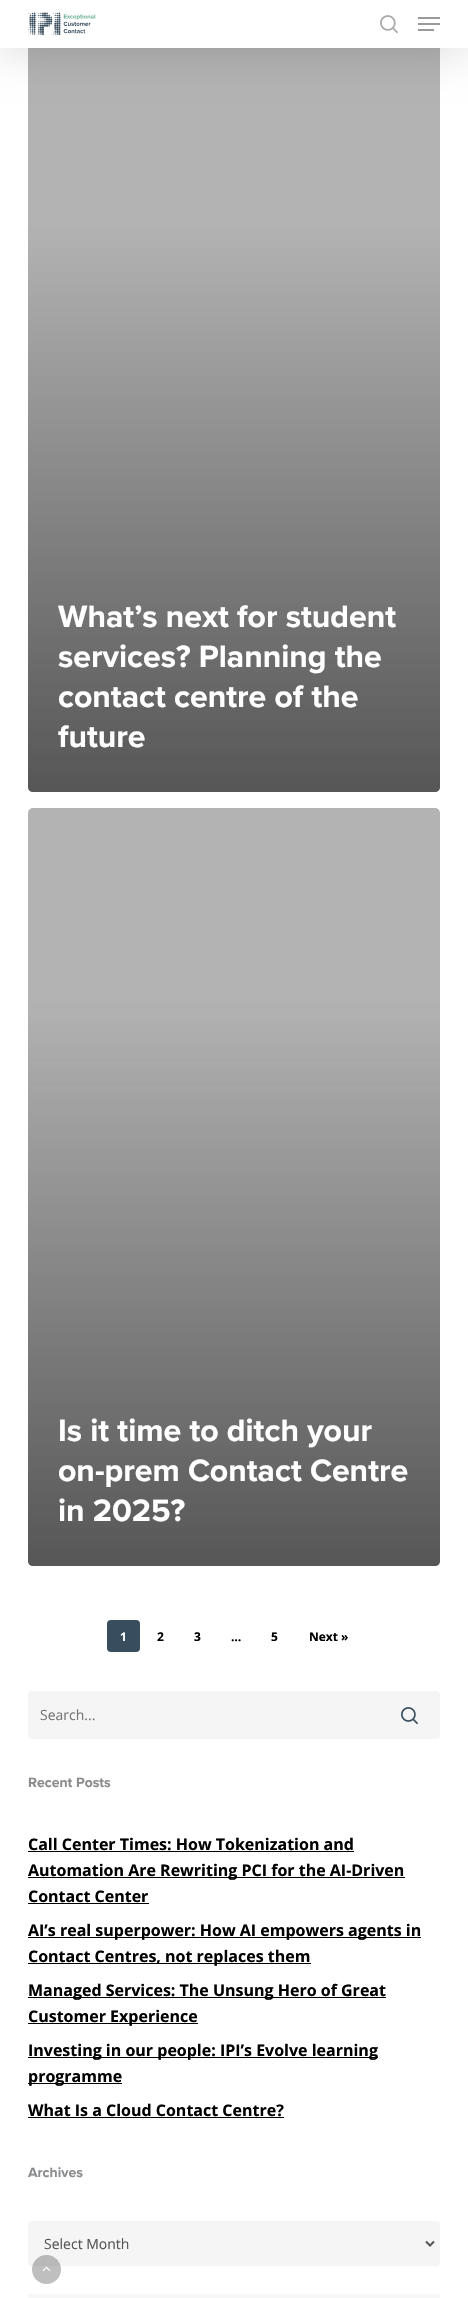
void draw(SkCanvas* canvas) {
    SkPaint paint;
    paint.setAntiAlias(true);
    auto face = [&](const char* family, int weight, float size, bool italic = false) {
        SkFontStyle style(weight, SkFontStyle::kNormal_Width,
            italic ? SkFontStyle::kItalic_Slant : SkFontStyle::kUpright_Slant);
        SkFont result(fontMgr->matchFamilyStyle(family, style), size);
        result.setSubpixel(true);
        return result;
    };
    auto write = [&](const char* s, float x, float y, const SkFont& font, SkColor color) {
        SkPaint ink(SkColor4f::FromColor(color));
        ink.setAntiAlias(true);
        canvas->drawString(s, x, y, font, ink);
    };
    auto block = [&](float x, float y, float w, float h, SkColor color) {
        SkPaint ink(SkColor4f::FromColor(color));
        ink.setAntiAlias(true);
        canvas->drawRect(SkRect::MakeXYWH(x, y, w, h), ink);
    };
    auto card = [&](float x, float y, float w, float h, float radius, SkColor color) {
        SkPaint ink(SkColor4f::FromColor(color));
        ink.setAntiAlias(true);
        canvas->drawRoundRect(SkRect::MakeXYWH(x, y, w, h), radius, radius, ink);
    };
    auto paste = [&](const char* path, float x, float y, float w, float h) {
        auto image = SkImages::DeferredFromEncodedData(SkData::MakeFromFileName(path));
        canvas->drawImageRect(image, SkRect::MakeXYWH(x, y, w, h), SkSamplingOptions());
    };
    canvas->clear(SK_ColorWHITE);
    card(28, 33, 412, 759, 5, SkColorSetRGB(179, 179, 179));
    paint.setColor(SkColorSetARGB(38, 0, 0, 0));
    paint.setMaskFilter(SkMaskFilter::MakeBlur(kNormal_SkBlurStyle, 22.5f));
    canvas->drawRect(SkRect::MakeXYWH(0, 3, 468, 48), paint);
    paint.setMaskFilter(nullptr);
    block(0, 0, 468, 48, SK_ColorWHITE);
    paste("pic1.png", 28, 12, 68, 23);
    paste("pic2.png", 380, 15, 18, 18);
    block(418, 17, 22, 2, SkColorSetRGB(153, 153, 153));
    block(418, 29, 16, 2, SkColorSetRGB(153, 153, 153));
    block(418, 23, 22, 2, SkColorSetRGB(153, 153, 153));
    {
        const SkColor colors[] = {SkColorSetARGB(0, 35, 35, 35), SkColorSetARGB(166, 35, 35, 35)};
        const float stops[] = {0, 1};
        const SkPoint ends[] = {{235, 224}, {235, 795}};
        paint.setShader(SkGradientShader::MakeLinear(ends, colors, stops, 2, SkTileMode::kClamp));
        paint.setAlpha(255);
    }
    canvas->drawPath(SkPathBuilder().moveTo(28, 224).lineTo(440, 224).lineTo(440, 787).cubicTo(440, 790, 438, 792, 435, 792).lineTo(33, 792).cubicTo(30, 792, 28, 790, 28, 787).close().detach(), paint);
    auto kFont1 = face("Proxima Nova", 700, 32);
    write("What’s next for student", 58, 627, kFont1, SK_ColorWHITE);
    write("services? Planning the", 58, 667, kFont1, SK_ColorWHITE);
    write("contact centre of the", 58, 707, kFont1, SK_ColorWHITE);
    write("future", 58, 747, kFont1, SK_ColorWHITE);
    card(28, 808, 412, 758, 5, SkColorSetRGB(179, 179, 179));
    {
        const SkColor colors[] = {SkColorSetARGB(0, 35, 35, 35), SkColorSetARGB(166, 35, 35, 35)};
        const float stops[] = {0, 1};
        const SkPoint ends[] = {{235, 998}, {235, 1570}};
        paint.setShader(SkGradientShader::MakeLinear(ends, colors, stops, 2, SkTileMode::kClamp));
        paint.setAlpha(255);
    }
    canvas->drawPath(SkPathBuilder().moveTo(28, 998).lineTo(440, 998).lineTo(440, 1561).cubicTo(440, 1564, 438, 1566, 435, 1566).lineTo(33, 1566).cubicTo(30, 1566, 28, 1564, 28, 1561).close().detach(), paint);
    write("Is it time to ditch your", 58, 1441, kFont1, SK_ColorWHITE);
    write("on-prem Contact Centre", 58, 1481, kFont1, SK_ColorWHITE);
    write("in 2025?", 58, 1521, kFont1, SK_ColorWHITE);
    card(107, 1620, 33, 32, 4, SkColorSetRGB(56, 77, 93));
    auto kFont2 = face("Open Sans", 700, 12);
    write("1", 120, 1641, kFont2, SK_ColorWHITE);
    write("2", 157, 1641, kFont2, SK_ColorBLACK);
    write("3", 194, 1641, kFont2, SK_ColorBLACK);
    write("…", 231, 1641, kFont2, SK_ColorBLACK);
    write("5", 271, 1641, kFont2, SK_ColorBLACK);
    write("Next »", 309, 1641, kFont2, SK_ColorBLACK);
    card(28, 1691, 412, 48, 4, SkColorSetRGB(245, 245, 245));
    auto kFont3 = face("Open Sans", 400, 14);
    write("Search...", 40, 1720, kFont3, SkColorSetRGB(117, 117, 117));
    paste("pic3.png", 401, 1707, 17, 17);
    auto kFont4 = face("Proxima Nova", 700, 14);
    write("Recent Posts", 28, 1787, kFont4, SkColorSetRGB(138, 140, 142));
    auto kFont5 = face("Open Sans", 700, 16);
    write("Call Center Times: How Tokenization and", 28, 1850, kFont5, SK_ColorBLACK);
    block(28, 1851, 326, 1, SK_ColorBLACK);
    block(28, 1877, 377, 1, SK_ColorBLACK);
    write("Automation Are Rewriting PCI for the AI-Driven", 28, 1876, kFont5, SK_ColorBLACK);
    write("Contact Center", 28, 1902, kFont5, SK_ColorBLACK);
    block(28, 1903, 121, 1, SK_ColorBLACK);
    block(28, 1937, 393, 1, SK_ColorBLACK);
    write("AI’s real superpower: How AI empowers agents in", 28, 1936, kFont5, SK_ColorBLACK);
    block(28, 1963, 283, 1, SK_ColorBLACK);
    write("Contact Centres, not replaces them", 28, 1962, kFont5, SK_ColorBLACK);
    block(28, 1997, 358, 1, SK_ColorBLACK);
    write("Managed Services: The Unsung Hero of Great", 28, 1996, kFont5, SK_ColorBLACK);
    block(28, 2023, 170, 1, SK_ColorBLACK);
    write("Customer Experience", 28, 2022, kFont5, SK_ColorBLACK);
    block(28, 2057, 350, 1, SK_ColorBLACK);
    write("Investing in our people: IPI’s Evolve learning", 28, 2056, kFont5, SK_ColorBLACK);
    block(28, 2083, 94, 1, SK_ColorBLACK);
    write("programme", 28, 2082, kFont5, SK_ColorBLACK);
    write("What Is a Cloud Contact Centre?", 28, 2116, kFont5, SK_ColorBLACK);
    block(28, 2117, 256, 1, SK_ColorBLACK);
    write("Archives", 28, 2177, kFont4, SkColorSetRGB(138, 140, 142));
    card(28, 2221, 412, 45, 4, SkColorSetRGB(245, 245, 245));
    paint.setStyle(SkPaint::kStroke_Style);
    paint.setStrokeWidth(2);
    paint.setShader(nullptr);
    paint.setColor(SkColorSetRGB(85, 85, 85));
    canvas->drawPath(SkPathBuilder().moveTo(426, 2241.5f).lineTo(430, 2245.5f).lineTo(434, 2241.5f).detach(), paint);
    write("Select Month", 44, 2249, kFont3, SkColorSetRGB(85, 85, 85));
    block(28, 2294, 412, 4, SkColorSetRGB(247, 247, 247));
    paint.setStyle(SkPaint::kFill_Style);
    paint.setColor(SkColorSetARGB(64, 0, 0, 0));
    canvas->drawCircle(46.5f, 2269.5f, 14.5f, paint);
    paste("pic4.png", 42, 2266, 9, 6);
}
